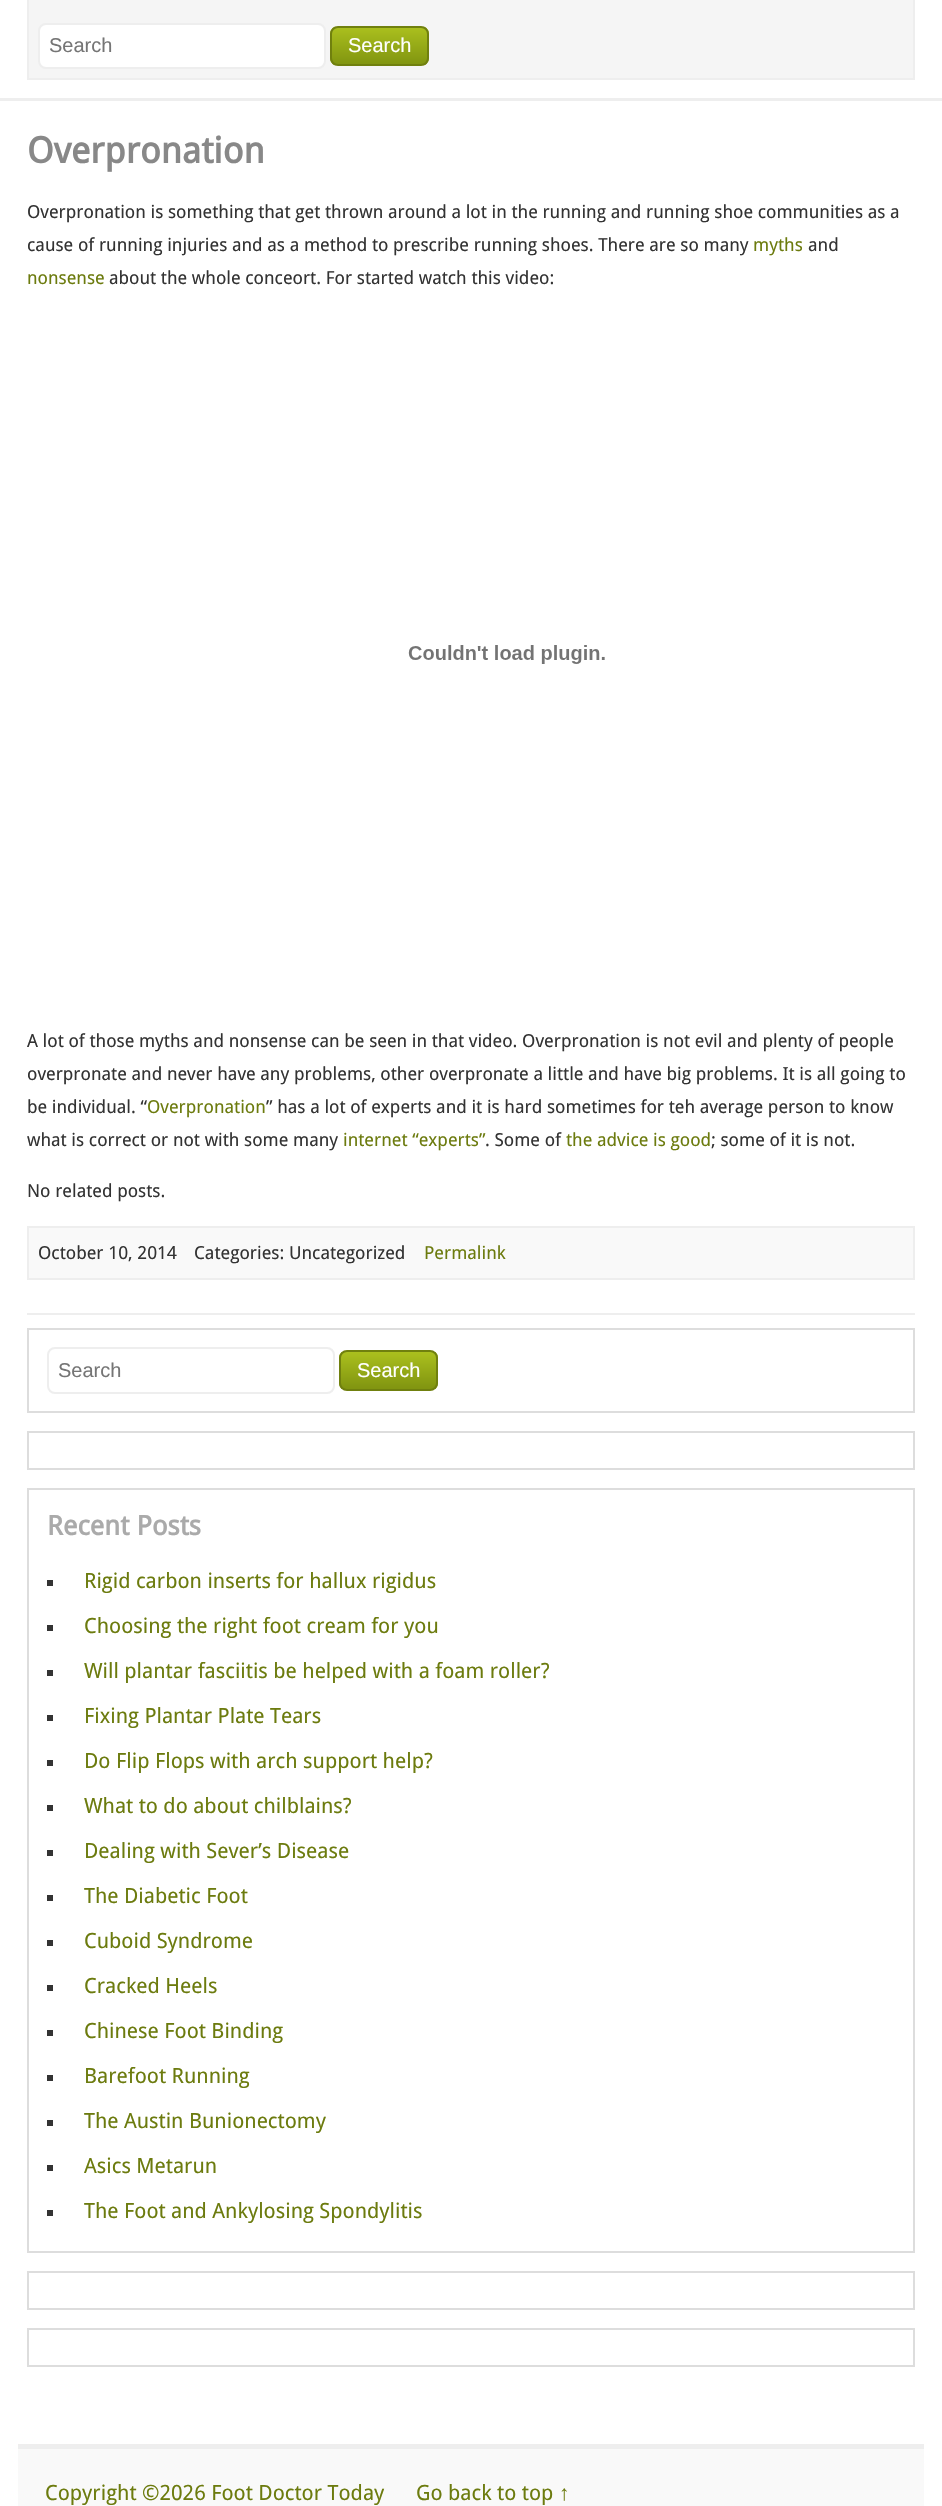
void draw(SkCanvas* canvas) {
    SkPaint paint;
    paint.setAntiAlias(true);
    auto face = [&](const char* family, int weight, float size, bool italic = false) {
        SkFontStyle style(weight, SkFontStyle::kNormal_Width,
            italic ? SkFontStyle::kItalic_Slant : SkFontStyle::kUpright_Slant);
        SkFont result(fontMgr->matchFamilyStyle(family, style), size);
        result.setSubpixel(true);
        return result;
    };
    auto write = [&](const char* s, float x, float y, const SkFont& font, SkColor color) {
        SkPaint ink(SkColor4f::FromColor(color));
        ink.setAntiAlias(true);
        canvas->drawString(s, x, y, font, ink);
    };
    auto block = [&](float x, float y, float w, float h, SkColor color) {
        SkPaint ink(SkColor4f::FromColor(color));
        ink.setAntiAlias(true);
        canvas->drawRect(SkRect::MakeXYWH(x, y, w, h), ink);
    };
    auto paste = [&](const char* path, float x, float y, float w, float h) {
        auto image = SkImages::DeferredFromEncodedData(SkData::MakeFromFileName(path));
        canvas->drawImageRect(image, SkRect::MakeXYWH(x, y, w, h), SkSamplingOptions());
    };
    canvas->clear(SK_ColorWHITE);
    block(0, 98, 942, 3, SkColorSetRGB(238, 238, 238));
    paint.setColor(SkColorSetRGB(245, 245, 245));
    canvas->drawRect(SkRect::MakeXYWH(28, -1, 886, 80), paint);
    paint.setStyle(SkPaint::kStroke_Style);
    paint.setStrokeWidth(2);
    paint.setColor(SkColorSetRGB(238, 238, 238));
    canvas->drawRect(SkRect::MakeXYWH(28, -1, 886, 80), paint);
    paint.setStyle(SkPaint::kFill_Style);
    paint.setColor(SK_ColorWHITE);
    canvas->drawRoundRect(SkRect::MakeXYWH(39, 24, 286, 44), 7, 7, paint);
    paint.setStyle(SkPaint::kStroke_Style);
    paint.setColor(SkColorSetRGB(238, 238, 238));
    canvas->drawRoundRect(SkRect::MakeXYWH(39, 24, 286, 44), 7, 7, paint);
    auto kFont1 = face("Liberation Sans", 400, 20);
    write("Search", 49, 52, kFont1, SkColorSetRGB(117, 117, 117));
    canvas->save();
    canvas->clipPath(SkPathBuilder().moveTo(338, 26).lineTo(421, 26).cubicTo(425.5f, 26, 429, 29.5f, 429, 34).lineTo(429, 58).cubicTo(429, 62.5f, 425.5f, 66, 421, 66).lineTo(338, 66).cubicTo(333.5f, 66, 330, 62.5f, 330, 58).lineTo(330, 34).cubicTo(330, 29.5f, 333.5f, 26, 338, 26).close().detach(), true);
    paint.setStyle(SkPaint::kFill_Style);
    {
        const SkColor colors[] = {SkColorSetRGB(171, 192, 30), SkColorSetRGB(128, 148, 16)};
        const float stops[] = {0, 1};
        const SkPoint ends[] = {{380, 27}, {380, 65}};
        paint.setShader(SkGradientShader::MakeLinear(ends, colors, stops, 2, SkTileMode::kClamp));
        paint.setAlpha(255);
    }
    canvas->drawRect(SkRect::MakeXYWH(330, 27, 99, 38), paint);
    canvas->restore();
    paint.setStyle(SkPaint::kStroke_Style);
    paint.setShader(nullptr);
    paint.setColor(SkColorSetRGB(112, 128, 14));
    canvas->drawRoundRect(SkRect::MakeXYWH(331, 27, 97, 38), 7, 7, paint);
    write("Search", 348, 52, kFont1, SK_ColorWHITE);
    block(27, 1313, 888, 2, SkColorSetRGB(238, 238, 238));
    auto kFont2 = face("Droid Sans", 700, 36);
    write("Overpronation", 27, 163, kFont2, SkColorSetRGB(136, 136, 136));
    auto kFont3 = face("Droid Sans", 400, 18);
    write("Overpronation is something that get thrown around a lot in the running and running shoe communities as a", 27, 218, kFont3, SkColorSetRGB(51, 51, 51));
    write("cause of running injuries and as a method to prescribe running shoes. There are so many", 27, 251, kFont3, SkColorSetRGB(51, 51, 51));
    write("myths", 753, 251, kFont3, SkColorSetRGB(108, 123, 14));
    write("and", 808, 251, kFont3, SkColorSetRGB(51, 51, 51));
    write("nonsense", 27, 284, kFont3, SkColorSetRGB(108, 123, 14));
    write("about the whole conceort. For started watch this video:", 109, 284, kFont3, SkColorSetRGB(51, 51, 51));
    paste("pic1.png", 408, 645, 197, 19);
    write("A lot of those myths and nonsense can be seen in that video. Overpronation is not evil and plenty of people", 27, 1047, kFont3, SkColorSetRGB(51, 51, 51));
    write("overpronate and never have any problems, other overpronate a little and have big problems. It is all going to", 27, 1080, kFont3, SkColorSetRGB(51, 51, 51));
    write("be individual. “", 27, 1113, kFont3, SkColorSetRGB(51, 51, 51));
    write("Overpronation", 147, 1113, kFont3, SkColorSetRGB(108, 123, 14));
    write("” has a lot of experts and it is hard sometimes for teh average person to know", 266, 1113, kFont3, SkColorSetRGB(51, 51, 51));
    write("what is correct or not with some many", 27, 1146, kFont3, SkColorSetRGB(51, 51, 51));
    write("internet “experts”", 343, 1146, kFont3, SkColorSetRGB(108, 123, 14));
    write(". Some of", 485, 1146, kFont3, SkColorSetRGB(51, 51, 51));
    write("the advice is good", 566, 1146, kFont3, SkColorSetRGB(108, 123, 14));
    write("; some of it is not.", 711, 1146, kFont3, SkColorSetRGB(51, 51, 51));
    write("No related posts.", 27, 1197, kFont3, SkColorSetRGB(51, 51, 51));
    paint.setStyle(SkPaint::kFill_Style);
    paint.setColor(SkColorSetRGB(249, 249, 249));
    canvas->drawRect(SkRect::MakeXYWH(28, 1227, 886, 52), paint);
    paint.setStyle(SkPaint::kStroke_Style);
    paint.setColor(SkColorSetRGB(238, 238, 238));
    canvas->drawRect(SkRect::MakeXYWH(28, 1227, 886, 52), paint);
    write("October 10, 2014", 38, 1259, kFont3, SkColorSetRGB(51, 51, 51));
    write("Categories: Uncategorized", 194, 1259, kFont3, SkColorSetRGB(51, 51, 51));
    write("Permalink", 424, 1259, kFont3, SkColorSetRGB(108, 123, 14));
    paint.setColor(SkColorSetRGB(221, 221, 221));
    canvas->drawRect(SkRect::MakeXYWH(28, 1329, 886, 83), paint);
    paint.setColor(SkColorSetRGB(238, 238, 238));
    canvas->drawRoundRect(SkRect::MakeXYWH(48, 1348, 286, 45), 7, 7, paint);
    write("Search", 58, 1377, kFont1, SkColorSetRGB(117, 117, 117));
    canvas->save();
    canvas->clipPath(SkPathBuilder().moveTo(347, 1350).lineTo(430, 1350).cubicTo(434.5f, 1350, 438, 1353.5f, 438, 1358).lineTo(438, 1383).cubicTo(438, 1387.5f, 434.5f, 1391, 430, 1391).lineTo(347, 1391).cubicTo(342.5f, 1391, 339, 1387.5f, 339, 1383).lineTo(339, 1358).cubicTo(339, 1353.5f, 342.5f, 1350, 347, 1350).close().detach(), true);
    paint.setStyle(SkPaint::kFill_Style);
    {
        const SkColor colors[] = {SkColorSetRGB(171, 192, 30), SkColorSetRGB(128, 148, 16)};
        const float stops[] = {0, 1};
        const SkPoint ends[] = {{389, 1352}, {389, 1389}};
        paint.setShader(SkGradientShader::MakeLinear(ends, colors, stops, 2, SkTileMode::kClamp));
        paint.setAlpha(255);
    }
    canvas->drawRect(SkRect::MakeXYWH(339, 1352, 99, 37), paint);
    canvas->restore();
    paint.setStyle(SkPaint::kStroke_Style);
    paint.setShader(nullptr);
    paint.setColor(SkColorSetRGB(112, 128, 14));
    canvas->drawRoundRect(SkRect::MakeXYWH(340, 1351, 97, 39), 7, 7, paint);
    write("Search", 357, 1377, kFont1, SK_ColorWHITE);
    paint.setColor(SkColorSetRGB(221, 221, 221));
    canvas->drawRect(SkRect::MakeXYWH(28, 1432, 886, 37), paint);
    canvas->drawRect(SkRect::MakeXYWH(28, 1489, 886, 763), paint);
    auto kFont4 = face("Droid Sans", 700, 27);
    write("Recent Posts", 47, 1535, kFont4, SkColorSetRGB(170, 170, 170));
    block(47, 1580, 6, 6, SkColorSetRGB(51, 51, 51));
    auto kFont5 = face("Droid Sans", 400, 21);
    write("Rigid carbon inserts for hallux rigidus", 84, 1588, kFont5, SkColorSetRGB(108, 123, 14));
    block(47, 1625, 6, 6, SkColorSetRGB(51, 51, 51));
    write("Choosing the right foot cream for you", 84, 1633, kFont5, SkColorSetRGB(108, 123, 14));
    block(47, 1670, 6, 6, SkColorSetRGB(51, 51, 51));
    write("Will plantar fasciitis be helped with a foam roller?", 84, 1678, kFont5, SkColorSetRGB(108, 123, 14));
    block(47, 1715, 6, 6, SkColorSetRGB(51, 51, 51));
    write("Fixing Plantar Plate Tears", 84, 1723, kFont5, SkColorSetRGB(108, 123, 14));
    block(47, 1760, 6, 6, SkColorSetRGB(51, 51, 51));
    write("Do Flip Flops with arch support help?", 84, 1768, kFont5, SkColorSetRGB(108, 123, 14));
    block(47, 1805, 6, 6, SkColorSetRGB(51, 51, 51));
    write("What to do about chilblains?", 84, 1813, kFont5, SkColorSetRGB(108, 123, 14));
    block(47, 1850, 6, 6, SkColorSetRGB(51, 51, 51));
    write("Dealing with Sever’s Disease", 84, 1858, kFont5, SkColorSetRGB(108, 123, 14));
    block(47, 1895, 6, 6, SkColorSetRGB(51, 51, 51));
    write("The Diabetic Foot", 84, 1903, kFont5, SkColorSetRGB(108, 123, 14));
    block(47, 1940, 6, 6, SkColorSetRGB(51, 51, 51));
    write("Cuboid Syndrome", 84, 1948, kFont5, SkColorSetRGB(108, 123, 14));
    block(47, 1985, 6, 6, SkColorSetRGB(51, 51, 51));
    write("Cracked Heels", 84, 1993, kFont5, SkColorSetRGB(108, 123, 14));
    block(47, 2030, 6, 6, SkColorSetRGB(51, 51, 51));
    write("Chinese Foot Binding", 84, 2038, kFont5, SkColorSetRGB(108, 123, 14));
    block(47, 2075, 6, 6, SkColorSetRGB(51, 51, 51));
    write("Barefoot Running", 84, 2083, kFont5, SkColorSetRGB(108, 123, 14));
    block(47, 2120, 6, 6, SkColorSetRGB(51, 51, 51));
    write("The Austin Bunionectomy", 84, 2128, kFont5, SkColorSetRGB(108, 123, 14));
    block(47, 2165, 6, 6, SkColorSetRGB(51, 51, 51));
    write("Asics Metarun", 84, 2173, kFont5, SkColorSetRGB(108, 123, 14));
    block(47, 2210, 6, 6, SkColorSetRGB(51, 51, 51));
    write("The Foot and Ankylosing Spondylitis", 84, 2218, kFont5, SkColorSetRGB(108, 123, 14));
    canvas->drawRect(SkRect::MakeXYWH(28, 2272, 886, 37), paint);
    canvas->drawRect(SkRect::MakeXYWH(28, 2329, 886, 37), paint);
    block(18, 2449, 906, 57, SkColorSetRGB(249, 249, 249));
    block(18, 2444, 906, 5, SkColorSetRGB(238, 238, 238));
    write("Copyright ©2026 Foot Doctor Today", 45, 2500, kFont5, SkColorSetRGB(108, 123, 14));
    write("Go back to top", 416, 2500, kFont5, SkColorSetRGB(108, 123, 14));
    auto kFont6 = face("Liberation Sans", 400, 21);
    write("↑", 559, 2500, kFont6, SkColorSetRGB(108, 123, 14));
}
